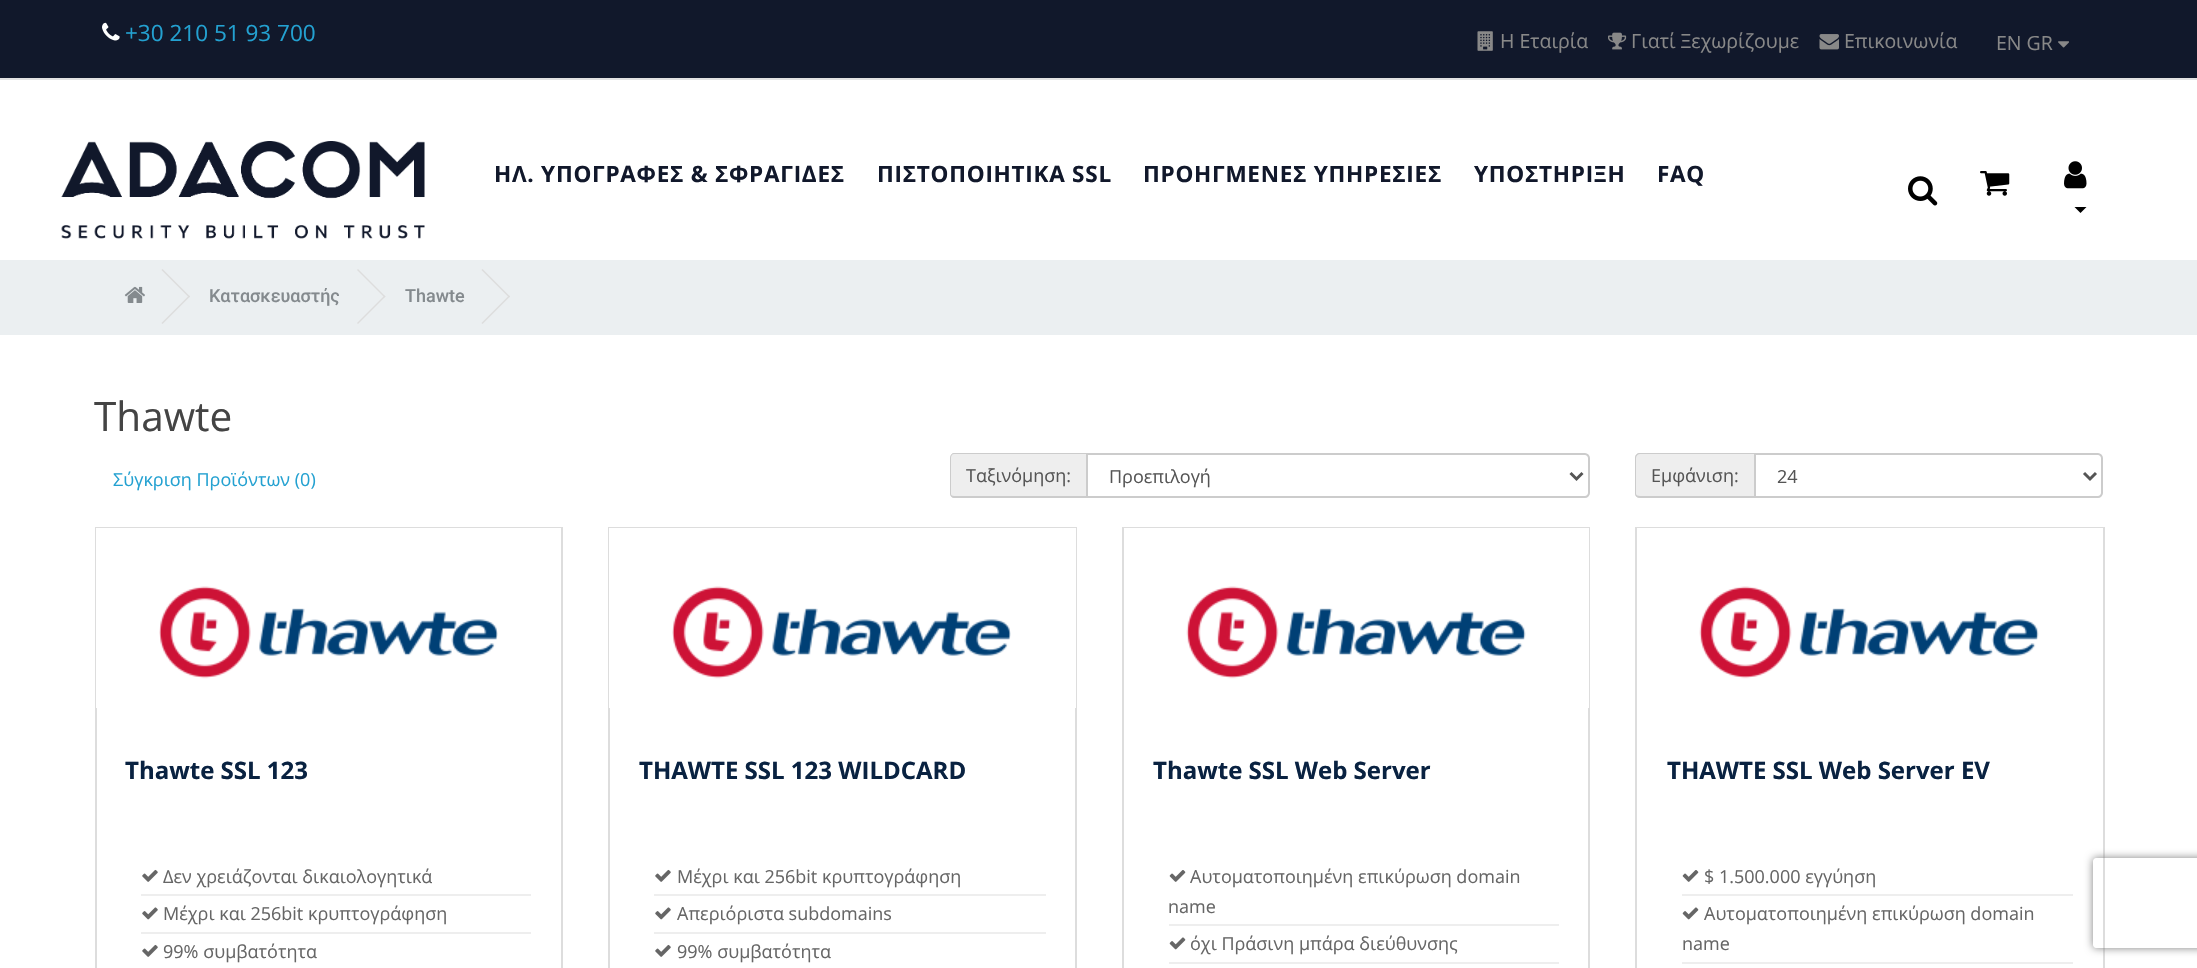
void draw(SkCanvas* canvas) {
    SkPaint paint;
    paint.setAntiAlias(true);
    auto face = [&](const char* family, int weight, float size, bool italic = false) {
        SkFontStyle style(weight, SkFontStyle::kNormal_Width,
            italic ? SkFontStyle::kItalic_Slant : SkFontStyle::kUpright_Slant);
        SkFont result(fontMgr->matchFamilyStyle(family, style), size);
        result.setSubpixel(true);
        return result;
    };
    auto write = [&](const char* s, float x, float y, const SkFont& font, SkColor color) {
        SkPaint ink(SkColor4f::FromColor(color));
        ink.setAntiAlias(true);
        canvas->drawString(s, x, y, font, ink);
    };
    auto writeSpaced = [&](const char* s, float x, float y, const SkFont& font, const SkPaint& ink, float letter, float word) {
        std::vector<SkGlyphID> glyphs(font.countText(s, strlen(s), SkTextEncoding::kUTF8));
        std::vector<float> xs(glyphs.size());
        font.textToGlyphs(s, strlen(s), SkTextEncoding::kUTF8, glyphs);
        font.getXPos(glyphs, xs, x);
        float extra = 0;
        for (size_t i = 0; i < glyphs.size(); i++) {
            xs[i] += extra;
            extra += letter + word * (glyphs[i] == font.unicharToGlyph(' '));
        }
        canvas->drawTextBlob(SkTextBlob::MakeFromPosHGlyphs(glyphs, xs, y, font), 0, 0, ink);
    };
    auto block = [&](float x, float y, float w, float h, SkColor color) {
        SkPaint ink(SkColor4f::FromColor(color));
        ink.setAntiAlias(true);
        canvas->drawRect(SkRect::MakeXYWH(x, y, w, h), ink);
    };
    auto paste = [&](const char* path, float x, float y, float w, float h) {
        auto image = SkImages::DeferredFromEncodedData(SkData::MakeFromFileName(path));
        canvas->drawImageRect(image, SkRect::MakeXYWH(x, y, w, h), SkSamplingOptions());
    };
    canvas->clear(SK_ColorWHITE);
    block(0, 0, 2197, 78, SkColorSetRGB(17, 24, 43));
    block(0, 78, 2197, 2, SkColorSetRGB(226, 226, 226));
    paste("pic1.png", 102, 22, 18, 19);
    auto kFont1 = face("Open Sans", 400, 22.5f);
    write("+30 210 51 93 700", 125, 41, kFont1, SkColorSetRGB(35, 161, 209));
    paste("pic2.png", 1477, 31, 16, 20);
    auto kFont2 = face("Open Sans", 400, 19.5f);
    write("Η Εταιρία", 1500, 48, kFont2, SkColorSetRGB(136, 136, 136));
    paste("pic3.png", 1608, 32, 19, 18);
    write("Γιατί Ξεχωρίζουμε", 1631, 48, kFont2, SkColorSetRGB(136, 136, 136));
    paste("pic4.png", 1819, 34, 20, 16);
    write("Επικοινωνία", 1844, 48, kFont2, SkColorSetRGB(136, 136, 136));
    write("ΕΝ GR", 1996, 50, kFont2, SkColorSetRGB(136, 136, 136));
    paste("pic5.png", 2058, 41, 11, 7);
    paste("pic6.png", 61, 141, 364, 98);
    auto kFont3 = face("Open Sans", 700, 22.5f);
    paint.setColor(SkColorSetRGB(17, 24, 43));
    writeSpaced("ΗΛ. ΥΠΟΓΡΑΦΕΣ & ΣΦΡΑΓΙΔΕΣ", 494, 182, kFont3, paint, 0.75f, 0);
    writeSpaced("ΠΙΣΤΟΠΟΙΗΤΙΚΑ SSL", 877, 182, kFont3, paint, 0.75f, 0);
    writeSpaced("ΠΡΟΗΓΜΕΝΕΣ ΥΠΗΡΕΣΙΕΣ", 1143, 182, kFont3, paint, 0.75f, 0);
    writeSpaced("ΥΠΟΣΤΗΡΙΞΗ", 1474, 182, kFont3, paint, 0.75f, 0);
    writeSpaced("FAQ", 1657, 182, kFont3, paint, 0.75f, 0);
    paste("pic7.png", 1908, 176, 30, 30);
    paste("pic8.png", 1980, 171, 30, 25);
    paste("pic9.png", 2064, 161, 23, 28);
    paint.setColor(SK_ColorBLACK);
    canvas->drawPath(SkPathBuilder().moveTo(2074.5f, 207).lineTo(2086.5f, 207).lineTo(2080.5f, 213).close().detach(), paint);
    block(0, 260, 2197, 75, SkColorSetRGB(235, 239, 241));
    paste("pic10.png", 124, 286, 21, 17);
    paint.setColor(SkColorSetRGB(221, 221, 221));
    canvas->drawPath(SkPathBuilder().moveTo(161.5f, 270).lineTo(162.5f, 269).lineTo(190, 296.5f).lineTo(189, 297.5f).close().detach(), paint);
    canvas->drawPath(SkPathBuilder().moveTo(161.5f, 323).lineTo(189, 295.5f).lineTo(190, 296.5f).lineTo(162.5f, 324).close().detach(), paint);
    auto kFont4 = face("Roboto", 500, 18);
    write("Κατασκευαστής", 209, 302, kFont4, SkColorSetRGB(132, 138, 142));
    canvas->drawPath(SkPathBuilder().moveTo(357, 270).lineTo(358, 269).lineTo(385.5f, 296.5f).lineTo(384.5f, 297.5f).close().detach(), paint);
    canvas->drawPath(SkPathBuilder().moveTo(357, 323).lineTo(384.5f, 295.5f).lineTo(385.5f, 296.5f).lineTo(358, 324).close().detach(), paint);
    write("Thawte", 405, 302, kFont4, SkColorSetRGB(132, 138, 142));
    canvas->drawPath(SkPathBuilder().moveTo(481.5f, 270).lineTo(482.5f, 269).lineTo(510, 296.5f).lineTo(509, 297.5f).close().detach(), paint);
    canvas->drawPath(SkPathBuilder().moveTo(481.5f, 323).lineTo(509, 295.5f).lineTo(510, 296.5f).lineTo(482.5f, 324).close().detach(), paint);
    auto kFont5 = face("Open Sans", 400, 40.5f);
    write("Thawte", 94, 431, kFont5, SkColorSetRGB(68, 68, 68));
    auto kFont6 = face("Open Sans", 400, 18);
    write("Σύγκριση Προϊόντων (0)", 113, 486, kFont6, SkColorSetRGB(35, 161, 209));
    paint.setColor(SkColorSetRGB(238, 238, 238));
    canvas->drawPath(SkPathBuilder().moveTo(955, 453).lineTo(1086, 453).lineTo(1086, 498).lineTo(955, 498).cubicTo(952, 498, 950, 496, 950, 493).lineTo(950, 458).cubicTo(950, 455, 952, 453, 955, 453).close().detach(), paint);
    paint.setColor(SkColorSetRGB(204, 204, 204));
    canvas->drawPath(SkPathBuilder(SkPathFillType::kEvenOdd).moveTo(954, 453).lineTo(1086, 453).lineTo(1086, 498).lineTo(954, 498).cubicTo(952, 498, 950, 496, 950, 494).lineTo(950, 458).cubicTo(950, 455, 952, 453, 954, 453).close().moveTo(954, 454).lineTo(1086, 454).lineTo(1086, 496).lineTo(954, 496).cubicTo(952, 496, 951, 495, 951, 494).lineTo(951, 458).cubicTo(951, 456, 952, 454, 954, 454).close().detach(), paint);
    write("Ταξινόμηση:", 966, 482, kFont6, SkColorSetRGB(85, 85, 85));
    paint.setStyle(SkPaint::kStroke_Style);
    paint.setStrokeWidth(2);
    canvas->drawPath(SkPathBuilder().moveTo(1087, 454).lineTo(1585, 454).cubicTo(1587, 454, 1589, 456, 1589, 458).lineTo(1589, 493).cubicTo(1589, 495, 1587, 497, 1585, 497).lineTo(1087, 497).close().detach(), paint);
    paint.setStrokeWidth(3);
    paint.setColor(SkColorSetRGB(85, 85, 85));
    canvas->drawPath(SkPathBuilder().moveTo(1570.5f, 473).lineTo(1576.5f, 479).lineTo(1582.5f, 473).detach(), paint);
    write("Προεπιλογή", 1109, 483, kFont6, SkColorSetRGB(85, 85, 85));
    paint.setStyle(SkPaint::kFill_Style);
    paint.setColor(SkColorSetRGB(238, 238, 238));
    canvas->drawPath(SkPathBuilder().moveTo(1640, 453).lineTo(1754, 453).lineTo(1754, 498).lineTo(1640, 498).cubicTo(1637, 498, 1635, 496, 1635, 493).lineTo(1635, 458).cubicTo(1635, 455, 1637, 453, 1640, 453).close().detach(), paint);
    paint.setColor(SkColorSetRGB(204, 204, 204));
    canvas->drawPath(SkPathBuilder(SkPathFillType::kEvenOdd).moveTo(1640, 453).lineTo(1754, 453).lineTo(1754, 498).lineTo(1640, 498).cubicTo(1637, 498, 1635, 496, 1635, 494).lineTo(1635, 458).cubicTo(1635, 455, 1637, 453, 1640, 453).close().moveTo(1640, 454).lineTo(1754, 454).lineTo(1754, 496).lineTo(1640, 496).cubicTo(1638, 496, 1636, 495, 1636, 494).lineTo(1636, 458).cubicTo(1636, 456, 1638, 454, 1640, 454).close().detach(), paint);
    write("Εμφάνιση:", 1651, 482, kFont6, SkColorSetRGB(85, 85, 85));
    paint.setStyle(SkPaint::kStroke_Style);
    paint.setStrokeWidth(2);
    canvas->drawPath(SkPathBuilder().moveTo(1755, 454).lineTo(2098, 454).cubicTo(2100, 454, 2102, 456, 2102, 458).lineTo(2102, 493).cubicTo(2102, 495, 2100, 497, 2098, 497).lineTo(1755, 497).close().detach(), paint);
    paint.setStrokeWidth(3);
    paint.setColor(SkColorSetRGB(85, 85, 85));
    canvas->drawPath(SkPathBuilder().moveTo(2084, 473).lineTo(2090, 479).lineTo(2096, 473).detach(), paint);
    write("24", 1777, 483, kFont6, SkColorSetRGB(85, 85, 85));
    paint.setStrokeWidth(2);
    paint.setColor(SkColorSetRGB(221, 221, 221));
    canvas->drawRect(SkRect::MakeXYWH(96, 528, 466, 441), paint);
    block(96, 528, 465, 180, SK_ColorWHITE);
    paste("pic11.png", 159, 586, 339, 93);
    auto kFont7 = face("Open Sans", 700, 24);
    write("Thawte SSL 123", 125, 779, kFont7, SkColorSetRGB(9, 34, 65));
    block(141, 894, 390, 2, SkColorSetRGB(238, 238, 238));
    paste("pic12.png", 142, 869, 16, 13);
    write("Δεν χρειάζονται δικαιολογητικά", 163, 883, kFont6, SkColorSetRGB(102, 102, 102));
    block(141, 932, 390, 2, SkColorSetRGB(238, 238, 238));
    paste("pic13.png", 142, 907, 16, 13);
    write("Μέχρι και 256bit κρυπτογράφηση", 163, 920, kFont6, SkColorSetRGB(102, 102, 102));
    paste("pic12.png", 142, 944, 16, 13);
    write("99% συμβατότητα", 163, 958, kFont6, SkColorSetRGB(102, 102, 102));
    canvas->drawRect(SkRect::MakeXYWH(609, 528, 467, 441), paint);
    block(609, 528, 467, 180, SK_ColorWHITE);
    paste("pic14.png", 672, 586, 339, 93);
    write("THAWTE SSL 123 WILDCARD", 639, 779, kFont7, SkColorSetRGB(9, 34, 65));
    block(654, 894, 392, 2, SkColorSetRGB(238, 238, 238));
    paste("pic12.png", 655, 869, 16, 13);
    write("Μέχρι και 256bit κρυπτογράφηση", 677, 883, kFont6, SkColorSetRGB(102, 102, 102));
    block(654, 932, 392, 2, SkColorSetRGB(238, 238, 238));
    paste("pic13.png", 655, 907, 16, 13);
    write("Απεριόριστα subdomains", 677, 920, kFont6, SkColorSetRGB(102, 102, 102));
    paste("pic12.png", 655, 944, 16, 13);
    write("99% συμβατότητα", 677, 958, kFont6, SkColorSetRGB(102, 102, 102));
    canvas->drawRect(SkRect::MakeXYWH(1123, 528, 466, 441), paint);
    block(1124, 528, 465, 180, SK_ColorWHITE);
    paste("pic15.png", 1186, 586, 340, 93);
    write("Thawte SSL Web Server", 1153, 779, kFont7, SkColorSetRGB(9, 34, 65));
    block(1169, 924, 390, 2, SkColorSetRGB(238, 238, 238));
    paste("pic16.png", 1169, 870, 17, 12);
    write("Αυτοματοποιημένη επικύρωση domain", 1190, 883, kFont6, SkColorSetRGB(102, 102, 102));
    write("name", 1168, 913, kFont6, SkColorSetRGB(102, 102, 102));
    block(1169, 962, 390, 2, SkColorSetRGB(238, 238, 238));
    paste("pic17.png", 1169, 937, 17, 13);
    write("όχι Πράσινη μπάρα διεύθυνσης", 1190, 950, kFont6, SkColorSetRGB(102, 102, 102));
    canvas->drawRect(SkRect::MakeXYWH(1636, 528, 468, 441), paint);
    block(1637, 528, 466, 1, SK_ColorWHITE);
    paste("pic18.png", 1699, 586, 340, 93);
    write("THAWTE SSL Web Server EV", 1667, 779, kFont7, SkColorSetRGB(9, 34, 65));
    block(1682, 894, 391, 2, SkColorSetRGB(238, 238, 238));
    paste("pic16.png", 1682, 870, 17, 12);
    write("$ 1.500.000 εγγύηση", 1704, 883, kFont6, SkColorSetRGB(102, 102, 102));
    block(1682, 962, 391, 2, SkColorSetRGB(238, 238, 238));
    paste("pic17.png", 1682, 907, 17, 13);
    write("Αυτοματοποιημένη επικύρωση domain", 1704, 920, kFont6, SkColorSetRGB(102, 102, 102));
    write("name", 1682, 950, kFont6, SkColorSetRGB(102, 102, 102));
    canvas->save();
    canvas->clipPath(SkPathBuilder(SkPathFillType::kEvenOdd).moveTo(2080, 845).lineTo(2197, 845).lineTo(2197, 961).lineTo(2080, 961).close().moveTo(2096, 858).lineTo(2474, 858).cubicTo(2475.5f, 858, 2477, 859.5f, 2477, 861).lineTo(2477, 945).cubicTo(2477, 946.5f, 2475.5f, 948, 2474, 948).lineTo(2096, 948).cubicTo(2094.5f, 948, 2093, 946.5f, 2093, 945).lineTo(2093, 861).cubicTo(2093, 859.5f, 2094.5f, 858, 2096, 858).close().detach(), true);
    paint.setStyle(SkPaint::kFill_Style);
    paint.setColor(SkColorSetRGB(128, 128, 128));
    paint.setMaskFilter(SkMaskFilter::MakeBlur(kNormal_SkBlurStyle, 4));
    canvas->drawRoundRect(SkRect::MakeXYWH(2093, 858, 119, 90), 3, 3, paint);
    paint.setMaskFilter(nullptr);
    canvas->restore();
}
